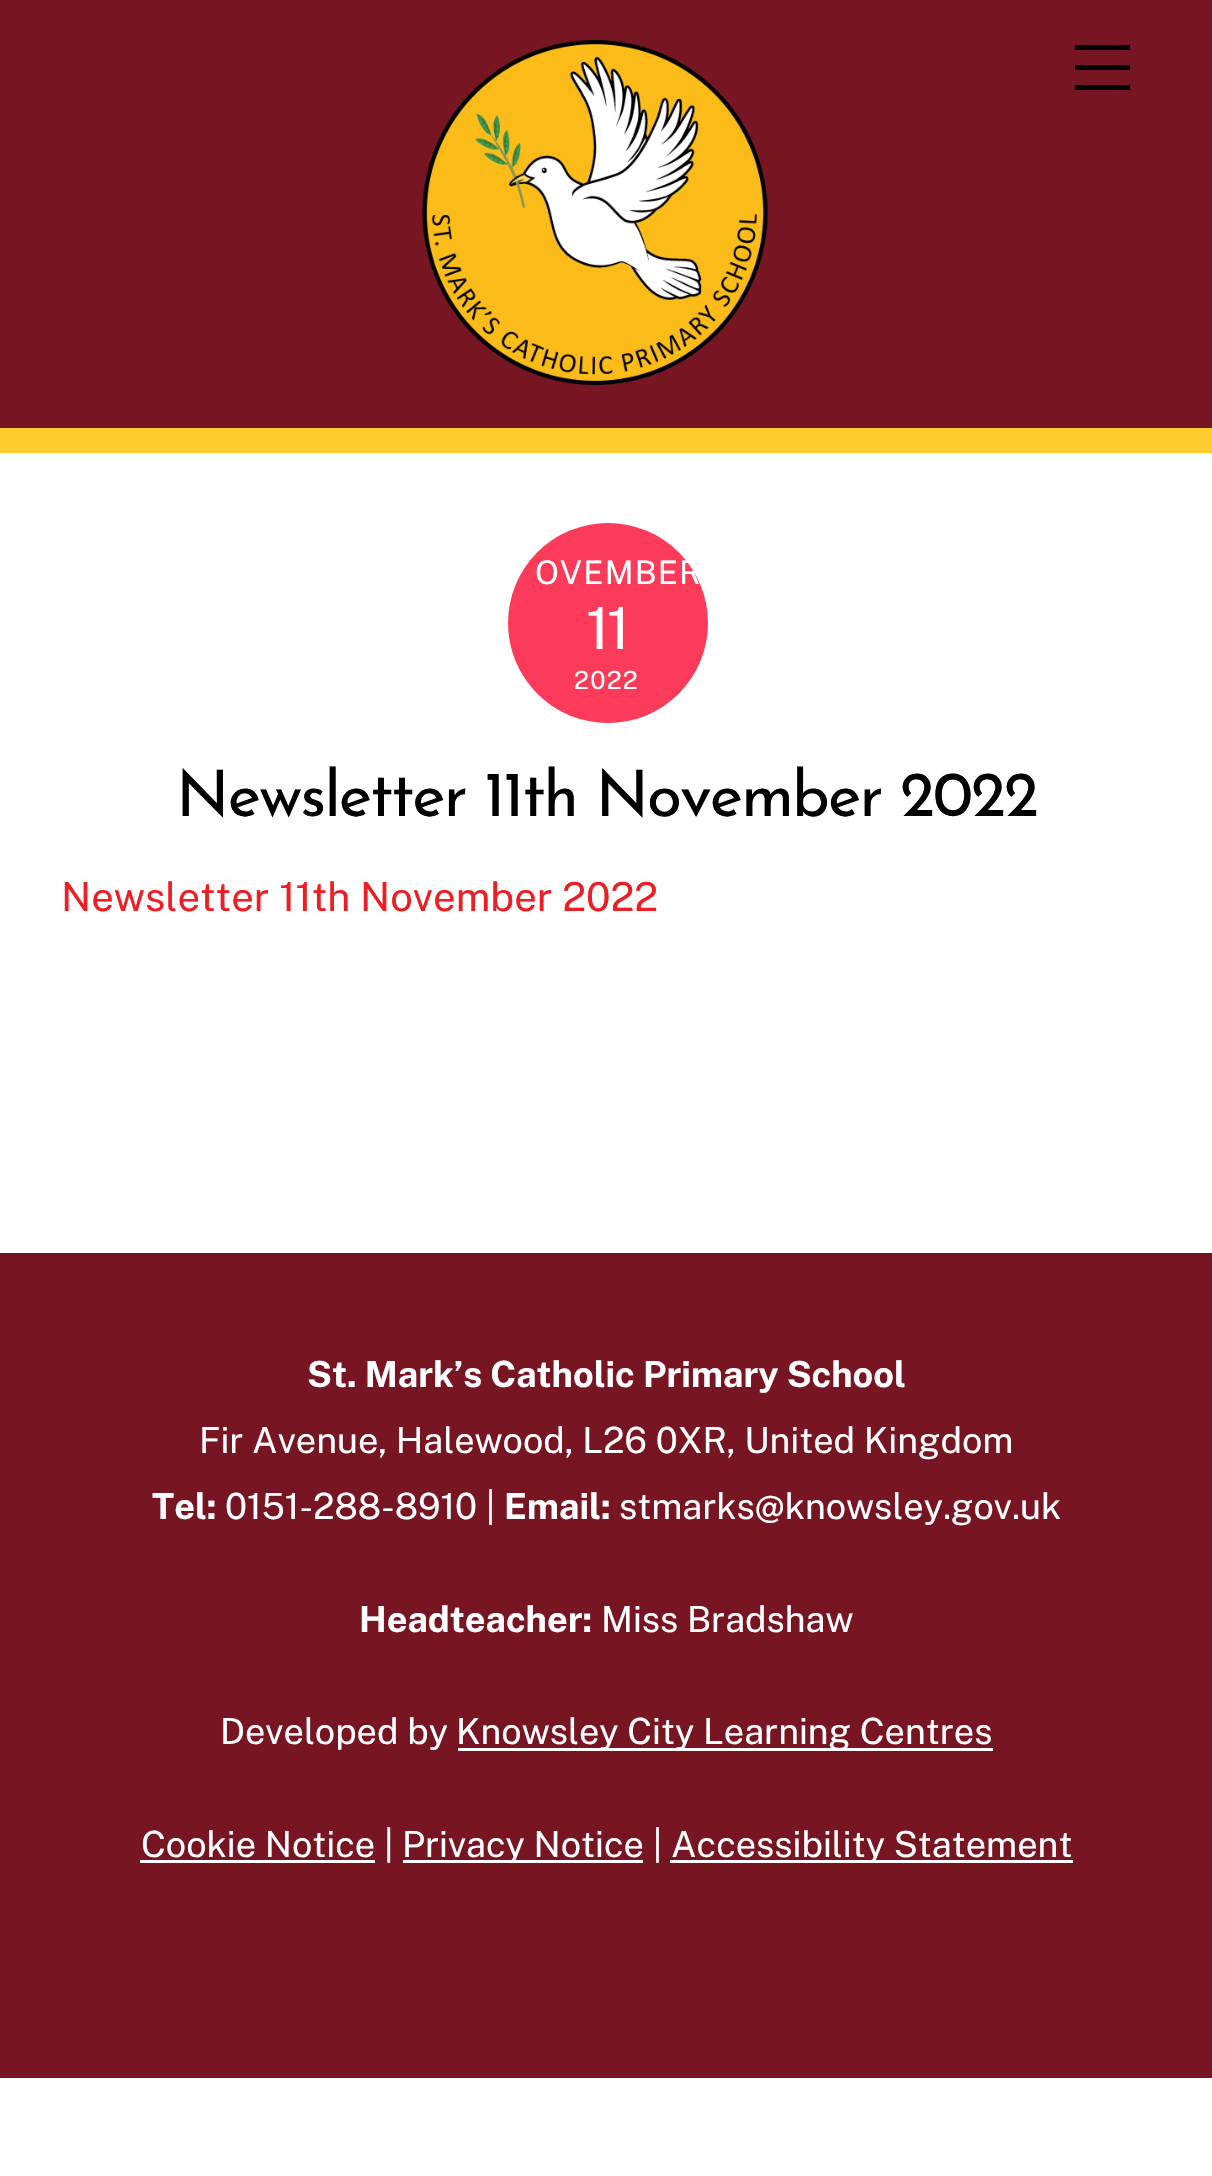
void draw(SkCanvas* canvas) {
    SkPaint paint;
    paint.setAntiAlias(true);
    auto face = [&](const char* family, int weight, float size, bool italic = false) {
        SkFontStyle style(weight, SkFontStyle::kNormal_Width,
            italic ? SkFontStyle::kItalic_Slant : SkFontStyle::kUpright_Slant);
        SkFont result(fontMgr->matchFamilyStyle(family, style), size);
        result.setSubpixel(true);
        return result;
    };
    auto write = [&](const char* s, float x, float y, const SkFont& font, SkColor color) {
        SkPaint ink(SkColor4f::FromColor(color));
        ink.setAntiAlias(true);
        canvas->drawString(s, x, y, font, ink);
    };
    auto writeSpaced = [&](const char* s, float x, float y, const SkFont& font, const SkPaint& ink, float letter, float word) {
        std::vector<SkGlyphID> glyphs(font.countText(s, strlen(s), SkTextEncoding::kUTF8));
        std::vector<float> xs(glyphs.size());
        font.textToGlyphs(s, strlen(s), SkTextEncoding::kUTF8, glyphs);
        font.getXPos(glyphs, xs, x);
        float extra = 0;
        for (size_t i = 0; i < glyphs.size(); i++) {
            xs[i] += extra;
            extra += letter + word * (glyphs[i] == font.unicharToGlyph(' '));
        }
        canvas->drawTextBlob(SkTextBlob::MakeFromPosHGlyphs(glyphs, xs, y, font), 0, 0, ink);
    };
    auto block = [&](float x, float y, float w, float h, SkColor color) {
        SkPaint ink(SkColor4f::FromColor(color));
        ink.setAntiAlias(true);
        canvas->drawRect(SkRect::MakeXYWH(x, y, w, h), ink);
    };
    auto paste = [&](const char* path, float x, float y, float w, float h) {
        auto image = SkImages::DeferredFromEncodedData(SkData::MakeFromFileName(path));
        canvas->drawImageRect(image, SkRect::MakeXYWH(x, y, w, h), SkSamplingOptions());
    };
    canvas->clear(SK_ColorWHITE);
    block(0, 0, 1212, 428, SkColorSetRGB(119, 21, 35));
    block(0, 428, 1212, 25, SkColorSetRGB(255, 205, 48));
    paste("pic1.png", 422, 40, 346, 345);
    block(1075, 85, 55, 5, SK_ColorBLACK);
    block(1075, 45, 55, 5, SK_ColorBLACK);
    block(1075, 65, 55, 5, SK_ColorBLACK);
    paint.setColor(SkColorSetRGB(252, 58, 89));
    canvas->drawCircle(608, 623, 100, paint);
    auto kFont1 = face("Public Sans", 400, 32.5f);
    paint.setColor(SK_ColorWHITE);
    writeSpaced("OVEMBER", 535, 584, kFont1, paint, 1.25f, 0);
    auto kFont2 = face("Public Sans", 400, 58);
    writeSpaced("11", 586, 649, kFont2, paint, -3, 0);
    auto kFont3 = face("Public Sans", 400, 25);
    writeSpaced("2022", 574, 689, kFont3, paint, 1.25f, 0);
    auto kFont4 = face("Josefin Sans", 400, 64);
    paint.setColor(SK_ColorBLACK);
    writeSpaced("Newsletter 11th November 2022", 176, 816, kFont4, paint, -1.9f, 0);
    auto kFont5 = face("Public Sans", 400, 40);
    write("Newsletter 11th November 2022", 61, 911, kFont5, SkColorSetRGB(237, 30, 36));
    block(0, 1256, 1212, 822, SkColorSetRGB(119, 21, 35));
    block(0, 1253, 1212, 3, SkColorSetRGB(113, 20, 33));
    auto kFont6 = face("Public Sans", 700, 36);
    write("St. Mark’s Catholic Primary School", 307, 1387, kFont6, SK_ColorWHITE);
    auto kFont7 = face("Public Sans", 400, 36);
    write("Fir Avenue, Halewood, L26 0XR, United Kingdom", 199, 1453, kFont7, SK_ColorWHITE);
    write("Tel:", 152, 1519, kFont6, SK_ColorWHITE);
    write("0151-288-8910 |", 225, 1519, kFont7, SK_ColorWHITE);
    write("Email:", 504, 1519, kFont6, SK_ColorWHITE);
    write("stmarks@knowsley.gov.uk", 619, 1519, kFont7, SK_ColorWHITE);
    write("Headteacher:", 359, 1632, kFont6, SK_ColorWHITE);
    write("Miss Bradshaw", 601, 1632, kFont7, SK_ColorWHITE);
    write("Developed by", 220, 1744, kFont7, SK_ColorWHITE);
    block(458, 1748, 535, 3, SK_ColorWHITE);
    write("Knowsley City Learning Centres", 456, 1744, kFont7, SK_ColorWHITE);
    block(140, 1860, 235, 3, SK_ColorWHITE);
    write("Cookie Notice |", 141, 1857, kFont7, SK_ColorWHITE);
    block(403, 1860, 240, 3, SK_ColorWHITE);
    write("Privacy Notice |", 402, 1857, kFont7, SK_ColorWHITE);
    block(670, 1860, 403, 3, SK_ColorWHITE);
    write("Accessibility Statement", 671, 1857, kFont7, SK_ColorWHITE);
}
